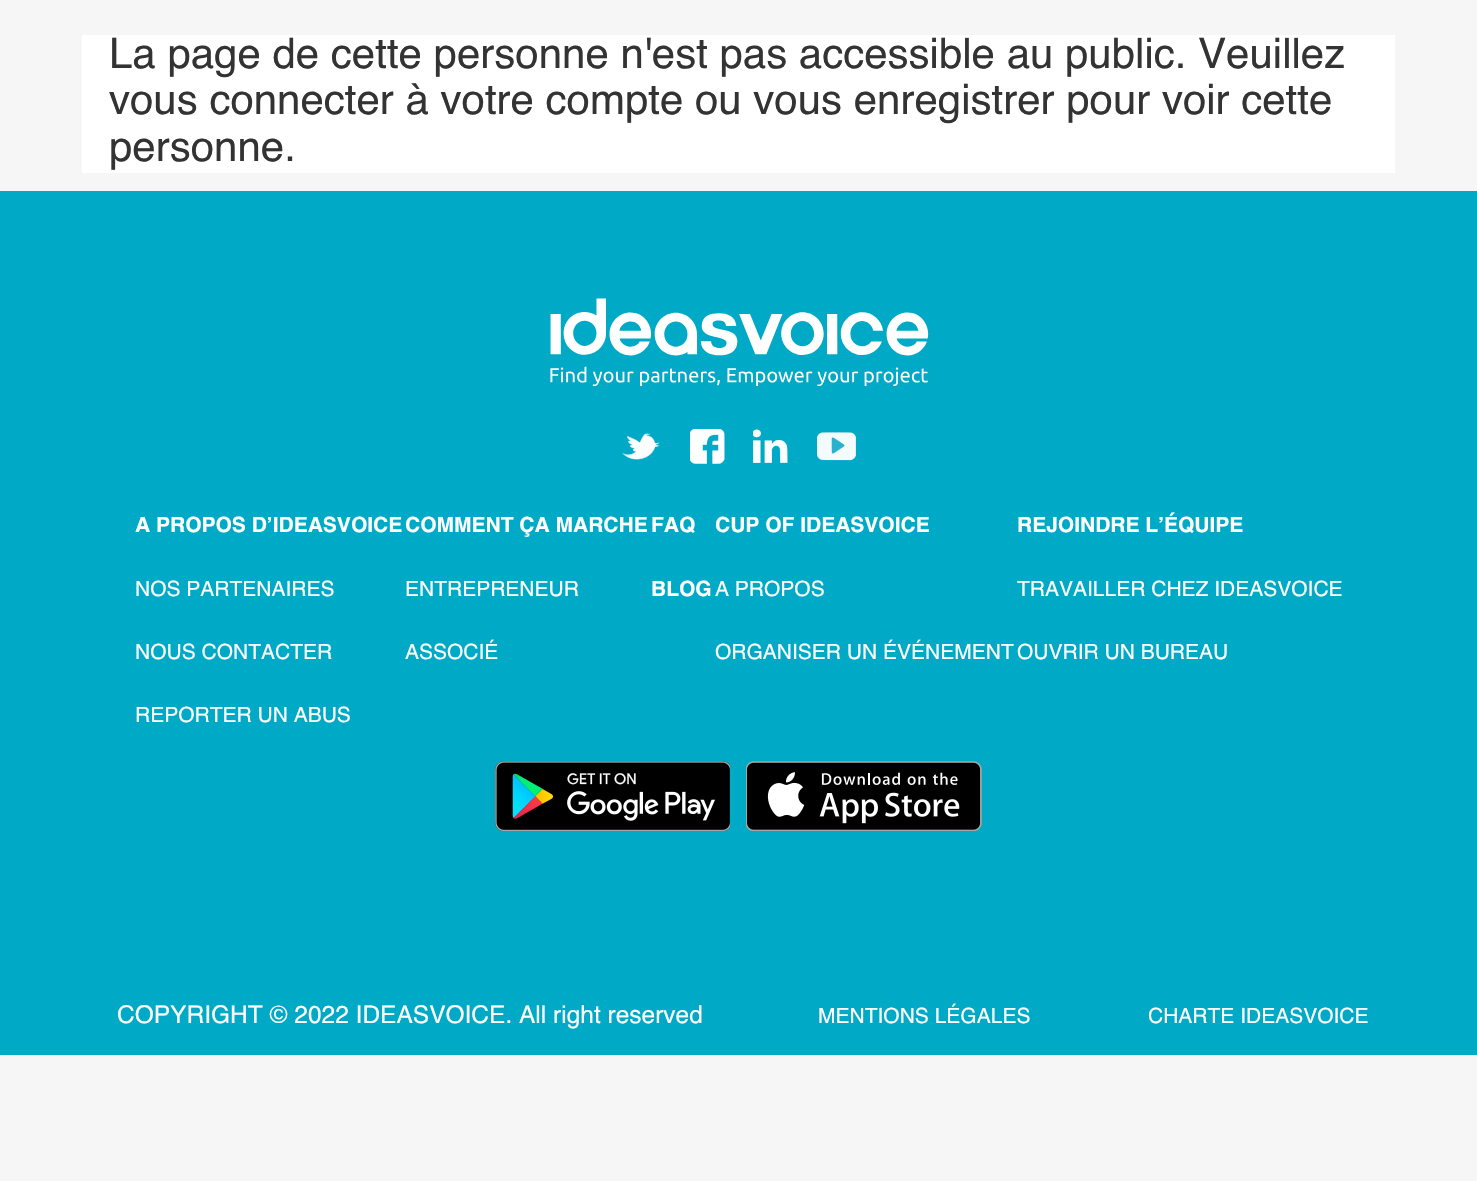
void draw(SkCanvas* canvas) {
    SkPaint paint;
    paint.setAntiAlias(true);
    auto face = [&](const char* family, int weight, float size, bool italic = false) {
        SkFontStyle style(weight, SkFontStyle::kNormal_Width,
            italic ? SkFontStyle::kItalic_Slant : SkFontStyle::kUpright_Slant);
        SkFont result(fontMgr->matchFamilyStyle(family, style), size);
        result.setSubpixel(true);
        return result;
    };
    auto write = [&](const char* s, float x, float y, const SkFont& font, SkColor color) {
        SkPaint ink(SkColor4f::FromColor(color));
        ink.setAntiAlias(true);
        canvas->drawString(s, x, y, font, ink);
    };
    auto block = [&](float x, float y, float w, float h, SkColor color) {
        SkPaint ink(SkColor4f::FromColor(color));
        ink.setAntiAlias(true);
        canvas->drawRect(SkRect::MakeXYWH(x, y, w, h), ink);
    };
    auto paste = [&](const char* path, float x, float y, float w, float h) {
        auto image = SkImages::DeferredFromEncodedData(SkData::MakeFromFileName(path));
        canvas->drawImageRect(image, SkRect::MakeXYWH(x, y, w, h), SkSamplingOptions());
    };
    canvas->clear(SkColorSetRGB(246, 246, 246));
    block(82, 35, 1313, 138, SK_ColorWHITE);
    auto kFont1 = face("Helvetica", 400, 42);
    write("La page de cette personne n'est pas accessible au public. Veuillez", 109, 68, kFont1, SkColorSetRGB(51, 51, 51));
    write("vous connecter à votre compte ou vous enregistrer pour voir cette", 109, 114, kFont1, SkColorSetRGB(51, 51, 51));
    write("personne.", 109, 161, kFont1, SkColorSetRGB(51, 51, 51));
    block(0, 191, 1477, 864, SkColorSetRGB(0, 169, 198));
    paste("pic1.png", 550, 298, 379, 88);
    paste("pic2.png", 622, 433, 38, 27);
    paste("pic3.png", 690, 429, 35, 35);
    paste("pic4.png", 753, 429, 35, 34);
    paste("pic5.png", 817, 432, 39, 29);
    auto kFont2 = face("Helvetica", 700, 21);
    write("A PROPOS D’IDEASVOICE", 135, 532, kFont2, SK_ColorWHITE);
    auto kFont3 = face("Helvetica", 400, 21);
    write("NOS PARTENAIRES", 135, 596, kFont3, SK_ColorWHITE);
    write("NOUS CONTACTER", 135, 659, kFont3, SK_ColorWHITE);
    write("REPORTER UN ABUS", 135, 722, kFont3, SK_ColorWHITE);
    write("COMMENT ÇA MARCHE", 405, 532, kFont2, SK_ColorWHITE);
    write("ENTREPRENEUR", 405, 596, kFont3, SK_ColorWHITE);
    write("ASSOCIÉ", 405, 659, kFont3, SK_ColorWHITE);
    write("FAQ", 651, 532, kFont2, SK_ColorWHITE);
    write("BLOG", 651, 596, kFont2, SK_ColorWHITE);
    write("CUP OF IDEASVOICE", 715, 532, kFont2, SK_ColorWHITE);
    write("A PROPOS", 715, 596, kFont3, SK_ColorWHITE);
    write("ORGANISER UN ÉVÉNEMENT", 715, 659, kFont3, SK_ColorWHITE);
    write("REJOINDRE L’ÉQUIPE", 1017, 532, kFont2, SK_ColorWHITE);
    write("TRAVAILLER CHEZ IDEASVOICE", 1017, 596, kFont3, SK_ColorWHITE);
    write("OUVRIR UN BUREAU", 1017, 659, kFont3, SK_ColorWHITE);
    paste("pic6.png", 495, 761, 235, 70);
    paste("pic7.png", 746, 761, 236, 70);
    auto kFont4 = face("Helvetica", 400, 24.5f);
    write("COPYRIGHT © 2022 IDEASVOICE. All right reserved", 117, 1023, kFont4, SK_ColorWHITE);
    write("MENTIONS LÉGALES", 818, 1023, kFont3, SK_ColorWHITE);
    write("CHARTE IDEASVOICE", 1148, 1023, kFont3, SK_ColorWHITE);
}
